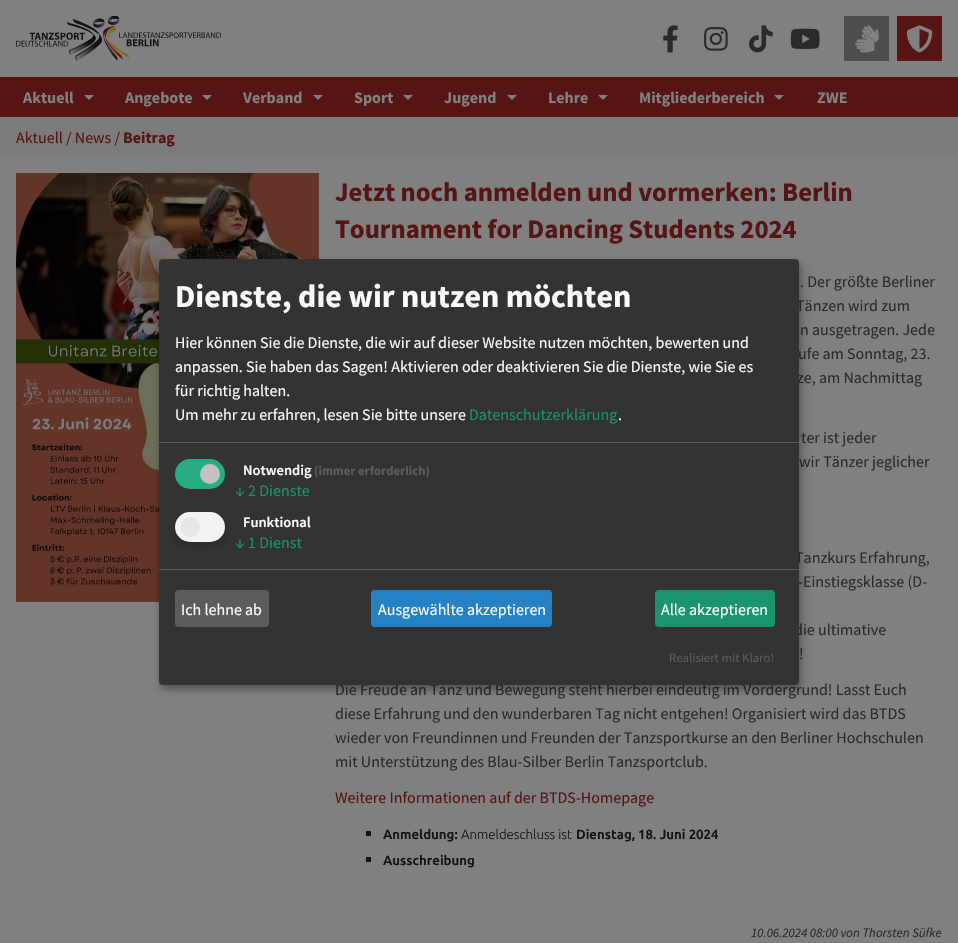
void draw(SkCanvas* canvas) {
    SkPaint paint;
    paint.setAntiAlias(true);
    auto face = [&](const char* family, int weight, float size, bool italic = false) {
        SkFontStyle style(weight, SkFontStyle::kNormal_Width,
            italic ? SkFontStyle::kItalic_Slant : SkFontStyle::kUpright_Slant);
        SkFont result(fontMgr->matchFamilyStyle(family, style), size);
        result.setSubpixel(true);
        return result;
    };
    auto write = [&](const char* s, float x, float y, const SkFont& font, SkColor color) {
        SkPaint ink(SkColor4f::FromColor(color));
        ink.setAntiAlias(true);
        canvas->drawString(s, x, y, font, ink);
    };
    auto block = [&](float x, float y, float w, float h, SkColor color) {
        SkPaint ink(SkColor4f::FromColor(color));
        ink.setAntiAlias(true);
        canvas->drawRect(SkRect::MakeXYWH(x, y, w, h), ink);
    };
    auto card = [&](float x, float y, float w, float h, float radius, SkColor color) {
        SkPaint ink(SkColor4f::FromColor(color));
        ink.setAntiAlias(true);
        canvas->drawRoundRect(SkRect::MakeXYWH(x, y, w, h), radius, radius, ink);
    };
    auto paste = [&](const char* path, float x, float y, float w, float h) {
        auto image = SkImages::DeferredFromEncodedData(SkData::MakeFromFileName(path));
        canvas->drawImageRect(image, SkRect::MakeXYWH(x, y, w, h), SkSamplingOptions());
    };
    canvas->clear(SkColorSetRGB(123, 123, 123));
    block(0, 0, 958, 77, SkColorSetRGB(128, 128, 128));
    paste("pic1.png", 16, 16, 205, 45);
    paste("pic2.png", 663, 25, 15, 28);
    paste("pic3.png", 704, 27, 24, 24);
    paste("pic4.png", 749, 25, 24, 28);
    paste("pic5.png", 790, 28, 30, 21);
    block(844, 16, 45, 45, SkColorSetRGB(77, 77, 77));
    paste("pic6.png", 855, 25, 24, 28);
    block(897, 16, 45, 45, SkColorSetRGB(86, 20, 20));
    paste("pic7.png", 906, 25, 27, 28);
    block(0, 77, 958, 40, SkColorSetRGB(86, 20, 20));
    auto kFont1 = face("Source Sans Pro", 700, 16);
    write("Aktuell", 23, 103, kFont1, SkColorSetRGB(128, 128, 128));
    paint.setColor(SkColorSetRGB(128, 128, 128));
    canvas->drawPath(SkPathBuilder().moveTo(84, 95).lineTo(94, 95).lineTo(89, 100).close().detach(), paint);
    write("Angebote", 125, 103, kFont1, SkColorSetRGB(128, 128, 128));
    canvas->drawPath(SkPathBuilder().moveTo(202, 95).lineTo(212, 95).lineTo(207, 100).close().detach(), paint);
    write("Verband", 243, 103, kFont1, SkColorSetRGB(128, 128, 128));
    canvas->drawPath(SkPathBuilder().moveTo(313, 95).lineTo(323, 95).lineTo(318, 100).close().detach(), paint);
    write("Sport", 354, 103, kFont1, SkColorSetRGB(128, 128, 128));
    canvas->drawPath(SkPathBuilder().moveTo(403, 95).lineTo(413, 95).lineTo(408, 100).close().detach(), paint);
    write("Jugend", 444, 103, kFont1, SkColorSetRGB(128, 128, 128));
    canvas->drawPath(SkPathBuilder().moveTo(507, 95).lineTo(517, 95).lineTo(512, 100).close().detach(), paint);
    write("Lehre", 548, 103, kFont1, SkColorSetRGB(128, 128, 128));
    canvas->drawPath(SkPathBuilder().moveTo(598, 95).lineTo(608, 95).lineTo(603, 100).close().detach(), paint);
    write("Mitgliederbereich", 639, 103, kFont1, SkColorSetRGB(128, 128, 128));
    canvas->drawPath(SkPathBuilder().moveTo(774, 95).lineTo(784, 95).lineTo(779, 100).close().detach(), paint);
    write("ZWE", 817, 103, kFont1, SkColorSetRGB(128, 128, 128));
    auto kFont2 = face("Source Sans Pro", 400, 16);
    write("Aktuell / News /", 16, 143, kFont2, SkColorSetRGB(86, 20, 20));
    write("Beitrag", 123, 143, kFont1, SkColorSetRGB(86, 20, 20));
    block(0, 157, 958, 786, SkColorSetRGB(128, 128, 128));
    paste("pic8.png", 16, 173, 303, 429);
    auto kFont3 = face("Source Sans Pro", 700, 26.7f);
    write("Jetzt noch anmelden und vormerken: Berlin", 335, 201, kFont3, SkColorSetRGB(86, 20, 20));
    write("Tournament for Dancing Students 2024", 335, 238, kFont3, SkColorSetRGB(86, 20, 20));
    write(". Der größte Berliner", 800, 287, kFont2, SkColorSetRGB(43, 43, 43));
    write("Tänzen wird zum", 796, 311, kFont2, SkColorSetRGB(43, 43, 43));
    write("n ausgetragen. Jede", 800, 335, kFont2, SkColorSetRGB(43, 43, 43));
    write("ufe am Sonntag, 23.", 798, 359, kFont2, SkColorSetRGB(43, 43, 43));
    write("ze, am Nachmittag", 797, 383, kFont2, SkColorSetRGB(43, 43, 43));
    write("ter ist jeder", 801, 443, kFont2, SkColorSetRGB(43, 43, 43));
    write("wir Tänzer jeglicher", 799, 467, kFont2, SkColorSetRGB(43, 43, 43));
    write("Tanzkurs Erfahrung,", 795, 563, kFont2, SkColorSetRGB(43, 43, 43));
    write("-Einstiegsklasse (D-", 798, 587, kFont2, SkColorSetRGB(43, 43, 43));
    write("die ultimative", 794, 635, kFont2, SkColorSetRGB(43, 43, 43));
    write("!", 799, 659, kFont2, SkColorSetRGB(43, 43, 43));
    write("Die Freude an Tanz und Bewegung steht hierbei eindeutig im Vordergrund! Lasst Euch", 335, 695, kFont2, SkColorSetRGB(43, 43, 43));
    write("diese Erfahrung und den wunderbaren Tag nicht entgehen! Organisiert wird das BTDS", 335, 719, kFont2, SkColorSetRGB(43, 43, 43));
    write("wieder von Freundinnen und Freunden der Tanzsportkurse an den Berliner Hochschulen", 335, 743, kFont2, SkColorSetRGB(43, 43, 43));
    write("mit Unterstützung des Blau-Silber Berlin Tanzsportclub.", 335, 767, kFont2, SkColorSetRGB(43, 43, 43));
    write("Weitere Informationen auf der BTDS-Homepage", 335, 803, kFont2, SkColorSetRGB(86, 20, 20));
    block(366, 831, 5, 5, SkColorSetRGB(17, 19, 21));
    auto kFont4 = face("Ubuntu", 700, 13.25f);
    write("Anmeldung:", 383, 839, kFont4, SkColorSetRGB(17, 19, 21));
    auto kFont5 = face("Ubuntu", 300, 13.25f);
    write("Anmeldeschluss ist", 461, 839, kFont5, SkColorSetRGB(17, 19, 21));
    write("Dienstag, 18. Juni 2024", 576, 839, kFont4, SkColorSetRGB(17, 19, 21));
    block(366, 857, 5, 5, SkColorSetRGB(17, 19, 21));
    write("Ausschreibung", 383, 865, kFont4, SkColorSetRGB(17, 19, 21));
    auto kFont6 = face("Source Sans Pro", 400, 13, true);
    write("10.06.2024 08:00 von Thorsten Süfke", 751, 937, kFont6, SkColorSetRGB(43, 43, 43));
    paint.setColor(SkColorSetARGB(48, 0, 0, 0));
    paint.setMaskFilter(SkMaskFilter::MakeBlur(kNormal_SkBlurStyle, 5));
    canvas->drawRoundRect(SkRect::MakeXYWH(164, 264, 640, 426), 4, 4, paint);
    paint.setMaskFilter(nullptr);
    paint.setColor(SkColorSetARGB(51, 0, 0, 0));
    paint.setMaskFilter(SkMaskFilter::MakeBlur(kNormal_SkBlurStyle, 3));
    canvas->drawRoundRect(SkRect::MakeXYWH(159, 263, 640, 426), 4, 4, paint);
    paint.setMaskFilter(nullptr);
    card(159, 259, 640, 426, 4, SkColorSetRGB(51, 51, 51));
    block(159, 442, 640, 1, SkColorSetRGB(92, 92, 92));
    auto kFont7 = face("Source Sans Pro", 700, 32);
    write("Dienste, die wir nutzen möchten", 175, 307, kFont7, SkColorSetRGB(250, 250, 250));
    write("Hier können Sie die Dienste, die wir auf dieser Website nutzen möchten, bewerten und", 175, 348, kFont2, SkColorSetRGB(250, 250, 250));
    write("anpassen. Sie haben das Sagen! Aktivieren oder deaktivieren Sie die Dienste, wie Sie es", 175, 372, kFont2, SkColorSetRGB(250, 250, 250));
    write("für richtig halten.", 175, 396, kFont2, SkColorSetRGB(250, 250, 250));
    write("Um mehr zu erfahren, lesen Sie bitte unsere", 175, 420, kFont2, SkColorSetRGB(250, 250, 250));
    write("Datenschutzerklärung", 469, 420, kFont2, SkColorSetRGB(26, 147, 111));
    write(".", 618, 420, kFont2, SkColorSetRGB(250, 250, 250));
    card(175, 459, 50, 30, 15, SkColorSetRGB(39, 173, 133));
    paint.setColor(SkColorSetRGB(194, 194, 194));
    canvas->drawCircle(210, 474, 10, paint);
    auto kFont8 = face("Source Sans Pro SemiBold", 600, 14.5f);
    write("Notwendig", 243, 475, kFont8, SkColorSetRGB(250, 250, 250));
    auto kFont9 = face("Source Sans Pro", 700, 12.75f);
    write("(immer erforderlich)", 314, 475, kFont9, SkColorSetRGB(92, 92, 92));
    write("↓ 2 Dienste", 235, 496, kFont2, SkColorSetRGB(26, 147, 111));
    paint.setColor(SkColorSetARGB(51, 0, 0, 0));
    paint.setMaskFilter(SkMaskFilter::MakeBlur(kNormal_SkBlurStyle, 3));
    canvas->drawRoundRect(SkRect::MakeXYWH(175, 516, 50, 30), 15, 15, paint);
    paint.setMaskFilter(nullptr);
    card(175, 512, 50, 30, 15, SkColorSetRGB(242, 242, 242));
    paint.setColor(SkColorSetRGB(230, 230, 230));
    canvas->drawCircle(190, 527, 10, paint);
    write("Funktional", 243, 527, kFont8, SkColorSetRGB(250, 250, 250));
    write("↓ 1 Dienst", 235, 548, kFont2, SkColorSetRGB(26, 147, 111));
    block(159, 569, 640, 1, SkColorSetRGB(92, 92, 92));
    card(175, 590, 94, 37, 4, SkColorSetRGB(92, 92, 92));
    write("Ich lehne ab", 181, 615, kFont2, SkColorSetRGB(250, 250, 250));
    card(371, 590, 181, 37, 4, SkColorSetRGB(37, 129, 196));
    write("Ausgewählte akzeptieren", 378, 615, kFont2, SkColorSetRGB(250, 250, 250));
    card(655, 590, 120, 37, 4, SkColorSetRGB(26, 147, 111));
    write("Alle akzeptieren", 661, 615, kFont2, SkColorSetRGB(250, 250, 250));
    auto kFont10 = face("Source Sans Pro", 400, 12.75f);
    write("Realisiert mit Klaro!", 669, 662, kFont10, SkColorSetRGB(92, 92, 92));
}
